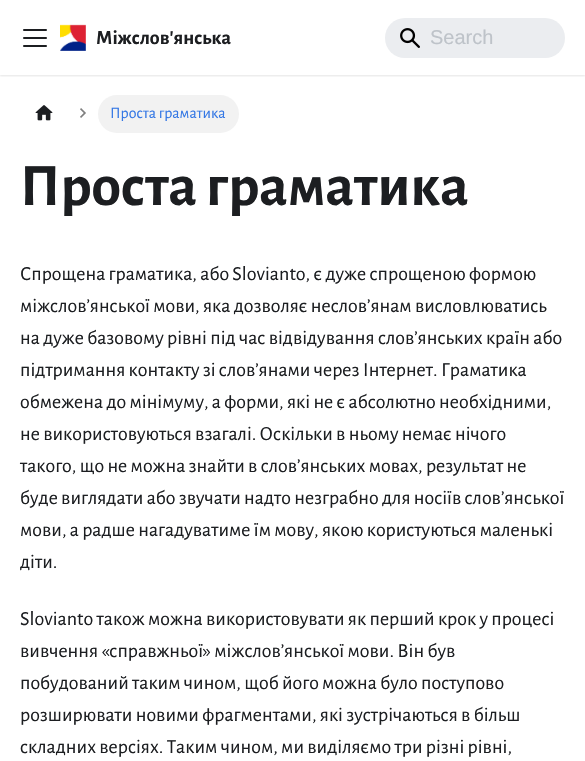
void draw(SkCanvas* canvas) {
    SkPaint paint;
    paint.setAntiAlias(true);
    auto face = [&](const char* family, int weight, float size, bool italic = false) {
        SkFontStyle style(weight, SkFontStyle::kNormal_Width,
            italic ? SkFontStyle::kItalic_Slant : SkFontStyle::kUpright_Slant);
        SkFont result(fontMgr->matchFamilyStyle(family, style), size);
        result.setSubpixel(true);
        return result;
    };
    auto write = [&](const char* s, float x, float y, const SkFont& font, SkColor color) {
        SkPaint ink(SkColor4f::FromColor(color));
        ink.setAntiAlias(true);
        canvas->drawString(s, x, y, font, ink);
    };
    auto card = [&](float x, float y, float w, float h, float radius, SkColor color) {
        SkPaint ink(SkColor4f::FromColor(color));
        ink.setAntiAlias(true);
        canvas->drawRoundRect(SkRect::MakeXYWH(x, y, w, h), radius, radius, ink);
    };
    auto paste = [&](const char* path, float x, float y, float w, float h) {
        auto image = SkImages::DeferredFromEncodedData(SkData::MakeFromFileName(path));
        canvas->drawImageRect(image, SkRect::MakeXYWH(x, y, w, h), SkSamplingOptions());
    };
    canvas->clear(SK_ColorWHITE);
    canvas->save();
    canvas->clipRect(SkRect::MakeXYWH(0, 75, 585, 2));
    paint.setColor(SkColorSetARGB(26, 0, 0, 0));
    paint.setMaskFilter(SkMaskFilter::MakeBlur(kNormal_SkBlurStyle, 1));
    canvas->drawRect(SkRect::MakeXYWH(0, 1, 585, 75), paint);
    paint.setMaskFilter(nullptr);
    canvas->restore();
    paste("pic1.png", 23, 29, 24, 18);
    paste("pic2.png", 60, 24, 26, 27);
    auto kFont1 = face("Alegreya Sans", 700, 20);
    write("Міжслов'янська", 96, 44, kFont1, SkColorSetRGB(28, 30, 33));
    card(385, 18, 180, 40, 20, SkColorSetRGB(235, 237, 240));
    paste("pic3.png", 400, 28, 20, 20);
    auto kFont2 = face("Liberation Sans", 400, 20);
    write("Search", 430, 44, kFont2, SkColorSetRGB(190, 195, 201));
    paste("pic4.png", 35, 105, 18, 16);
    paste("pic5.png", 80, 108, 6, 10);
    card(98, 95, 141, 38, 19, SkColorSetRGB(242, 242, 242));
    auto kFont3 = face("Alegreya Sans", 400, 16);
    write("Проста граматика", 110, 118, kFont3, SkColorSetRGB(53, 120, 229));
    auto kFont4 = face("Alegreya Sans", 700, 60);
    write("Проста граматика", 20, 205, kFont4, SkColorSetRGB(28, 30, 33));
    auto kFont5 = face("Alegreya Sans", 400, 20);
    write("Спрощена граматика, або Slovianto, є дуже спрощеною формою", 20, 280, kFont5, SkColorSetRGB(28, 30, 33));
    write("міжслов’янської мови, яка дозволяє неслов’янам висловлюватись", 20, 312, kFont5, SkColorSetRGB(28, 30, 33));
    write("на дуже базовому рівні під час відвідування слов’янських країн або", 20, 344, kFont5, SkColorSetRGB(28, 30, 33));
    write("підтримання контакту зі слов’янами через Інтернет. Граматика", 20, 376, kFont5, SkColorSetRGB(28, 30, 33));
    write("обмежена до мінімуму, а форми, які не є абсолютно необхідними,", 20, 408, kFont5, SkColorSetRGB(28, 30, 33));
    write("не використовуються взагалі. Оскільки в ньому немає нічого", 20, 440, kFont5, SkColorSetRGB(28, 30, 33));
    write("такого, що не можна знайти в слов’янських мовах, результат не", 20, 472, kFont5, SkColorSetRGB(28, 30, 33));
    write("буде виглядати або звучати надто незграбно для носіїв слов’янської", 20, 504, kFont5, SkColorSetRGB(28, 30, 33));
    write("мови, а радше нагадуватиме їм мову, якою користуються маленькі", 20, 536, kFont5, SkColorSetRGB(28, 30, 33));
    write("діти.", 20, 568, kFont5, SkColorSetRGB(28, 30, 33));
    write("Slovianto також можна використовувати як перший крок у процесі", 20, 625, kFont5, SkColorSetRGB(28, 30, 33));
    write("вивчення «справжньої» міжслов’янської мови. Він був", 20, 657, kFont5, SkColorSetRGB(28, 30, 33));
    write("побудований таким чином, щоб його можна було поступово", 20, 689, kFont5, SkColorSetRGB(28, 30, 33));
    write("розширювати новими фрагментами, які зустрічаються в більш", 20, 721, kFont5, SkColorSetRGB(28, 30, 33));
    write("складних версіях. Таким чином, ми виділяємо три різні рівні,", 20, 753, kFont5, SkColorSetRGB(28, 30, 33));
}
